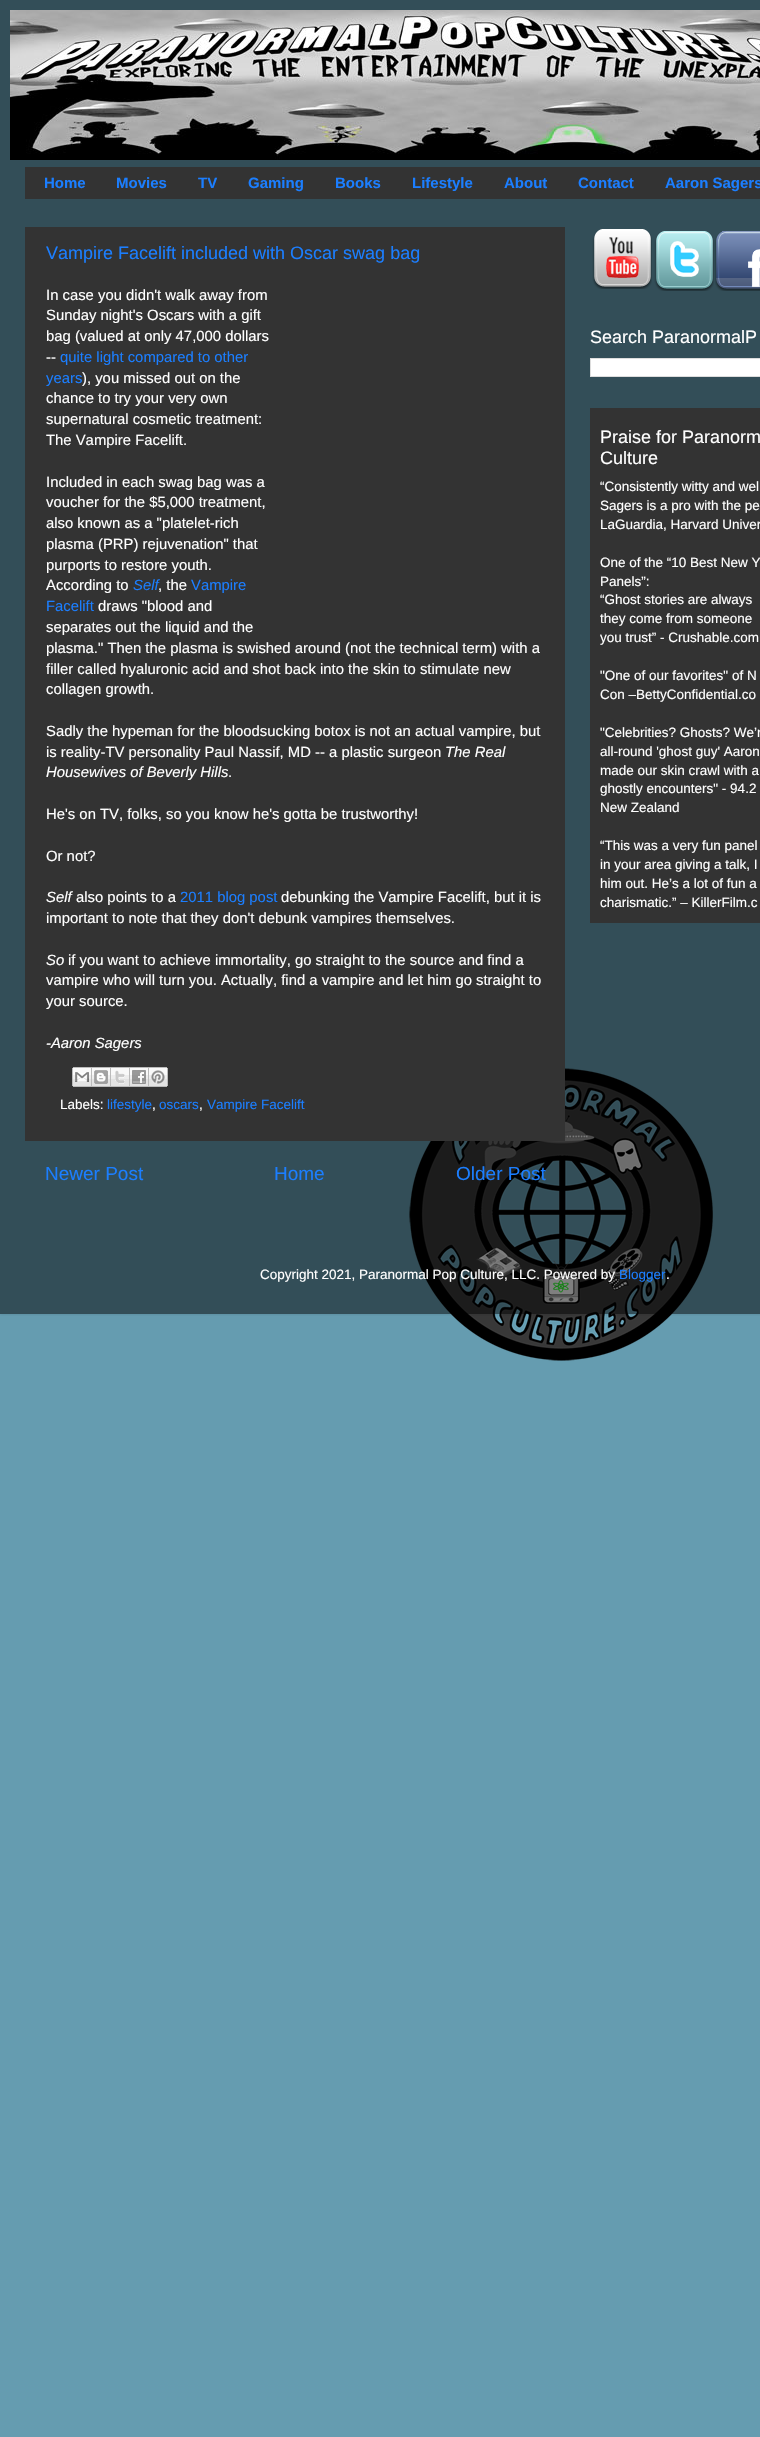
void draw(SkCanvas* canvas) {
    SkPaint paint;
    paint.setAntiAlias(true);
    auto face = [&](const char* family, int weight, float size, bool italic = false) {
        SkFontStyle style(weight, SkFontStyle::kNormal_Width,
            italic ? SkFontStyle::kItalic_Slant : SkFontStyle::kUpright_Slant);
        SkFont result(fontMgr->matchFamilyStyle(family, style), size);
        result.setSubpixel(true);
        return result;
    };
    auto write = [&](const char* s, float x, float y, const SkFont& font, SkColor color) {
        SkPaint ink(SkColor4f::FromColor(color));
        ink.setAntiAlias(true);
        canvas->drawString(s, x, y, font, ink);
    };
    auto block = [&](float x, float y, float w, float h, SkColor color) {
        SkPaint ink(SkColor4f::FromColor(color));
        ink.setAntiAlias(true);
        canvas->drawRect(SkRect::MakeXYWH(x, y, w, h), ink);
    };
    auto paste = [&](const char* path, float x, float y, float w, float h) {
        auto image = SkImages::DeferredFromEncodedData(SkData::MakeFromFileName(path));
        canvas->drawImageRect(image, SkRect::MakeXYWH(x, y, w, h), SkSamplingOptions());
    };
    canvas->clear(SkColorSetRGB(101, 156, 176));
    paste("pic1.png", 409, 1068, 304, 293);
    canvas->save();
    canvas->clipRect(SkRect::MakeXYWH(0, 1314, 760, 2));
    paint.setColor(SkColorSetARGB(38, 0, 0, 0));
    paint.setMaskFilter(SkMaskFilter::MakeBlur(kNormal_SkBlurStyle, 1.5f));
    canvas->drawRect(SkRect::MakeXYWH(0, 0, 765, 1314), paint);
    paint.setMaskFilter(nullptr);
    canvas->restore();
    block(0, 0, 760, 1314, SkColorSetARGB(128, 0, 0, 0));
    paste("pic2.png", 10, 10, 750, 150);
    block(25, 167, 735, 32, SkColorSetRGB(51, 51, 51));
    auto kFont1 = face("Liberation Sans", 700, 15);
    write("Home", 44, 188, kFont1, SkColorSetRGB(27, 126, 255));
    write("Movies", 116, 188, kFont1, SkColorSetRGB(27, 126, 255));
    write("TV", 198, 188, kFont1, SkColorSetRGB(27, 126, 255));
    write("Gaming", 248, 188, kFont1, SkColorSetRGB(27, 126, 255));
    write("Books", 335, 188, kFont1, SkColorSetRGB(27, 126, 255));
    write("Lifestyle", 412, 188, kFont1, SkColorSetRGB(27, 126, 255));
    write("About", 504, 188, kFont1, SkColorSetRGB(27, 126, 255));
    write("Contact", 578, 188, kFont1, SkColorSetRGB(27, 126, 255));
    write("Aaron Sagers", 665, 188, kFont1, SkColorSetRGB(27, 126, 255));
    block(25, 227, 540, 914, SkColorSetRGB(51, 51, 51));
    auto kFont2 = face("Liberation Sans", 400, 18);
    write("Vampire Facelift included with Oscar swag bag", 46, 259, kFont2, SkColorSetRGB(27, 126, 255));
    auto kFont3 = face("Liberation Sans", 400, 14.85f);
    write("In case you didn't walk away from", 46, 300, kFont3, SK_ColorWHITE);
    write("Sunday night's Oscars with a gift", 46, 320, kFont3, SK_ColorWHITE);
    write("bag (valued at only 47,000 dollars", 46, 341, kFont3, SK_ColorWHITE);
    write("--", 46, 362, kFont3, SK_ColorWHITE);
    write("quite light compared to other", 60, 362, kFont3, SkColorSetRGB(27, 126, 255));
    write("years", 46, 383, kFont3, SkColorSetRGB(27, 126, 255));
    write("), you missed out on the", 82, 383, kFont3, SK_ColorWHITE);
    write("chance to try your very own", 46, 403, kFont3, SK_ColorWHITE);
    write("supernatural cosmetic treatment:", 46, 424, kFont3, SK_ColorWHITE);
    write("The Vampire Facelift.", 46, 445, kFont3, SK_ColorWHITE);
    write("Included in each swag bag was a", 46, 487, kFont3, SK_ColorWHITE);
    write("voucher for the $5,000 treatment,", 46, 507, kFont3, SK_ColorWHITE);
    write("also known as a \"platelet-rich", 46, 528, kFont3, SK_ColorWHITE);
    write("plasma (PRP) rejuvenation\" that", 46, 549, kFont3, SK_ColorWHITE);
    write("purports to restore youth.", 46, 570, kFont3, SK_ColorWHITE);
    write("According to", 46, 590, kFont3, SK_ColorWHITE);
    auto kFont4 = face("Liberation Sans", 400, 14.85f, true);
    write("Self", 133, 590, kFont4, SkColorSetRGB(27, 126, 255));
    write(", the", 158, 590, kFont3, SK_ColorWHITE);
    write("Vampire", 191, 590, kFont3, SkColorSetRGB(27, 126, 255));
    write("Facelift", 46, 611, kFont3, SkColorSetRGB(27, 126, 255));
    write("draws \"blood and", 98, 611, kFont3, SK_ColorWHITE);
    write("separates out the liquid and the", 46, 632, kFont3, SK_ColorWHITE);
    write("plasma.\" Then the plasma is swished around (not the technical term) with a", 46, 653, kFont3, SK_ColorWHITE);
    write("filler called hyaluronic acid and shot back into the skin to stimulate new", 46, 674, kFont3, SK_ColorWHITE);
    write("collagen growth.", 46, 694, kFont3, SK_ColorWHITE);
    write("Sadly the hypeman for the bloodsucking botox is not an actual vampire, but", 46, 736, kFont3, SK_ColorWHITE);
    write("is reality-TV personality Paul Nassif, MD -- a plastic surgeon", 46, 757, kFont3, SK_ColorWHITE);
    write("The Real", 445, 757, kFont4, SK_ColorWHITE);
    write("Housewives of Beverly Hills", 46, 777, kFont4, SK_ColorWHITE);
    write(".", 228, 777, kFont3, SK_ColorWHITE);
    write("He's on TV, folks, so you know he's gotta be trustworthy!", 46, 819, kFont3, SK_ColorWHITE);
    write("Or not?", 46, 861, kFont3, SK_ColorWHITE);
    write("Self", 46, 902, kFont4, SK_ColorWHITE);
    write("also points to a", 76, 902, kFont3, SK_ColorWHITE);
    write("2011 blog post", 180, 902, kFont3, SkColorSetRGB(27, 126, 255));
    write("debunking the Vampire Facelift, but it is", 281, 902, kFont3, SK_ColorWHITE);
    write("important to note that they don't debunk vampires themselves.", 46, 923, kFont3, SK_ColorWHITE);
    write("So", 46, 965, kFont4, SK_ColorWHITE);
    write("if you want to achieve immortality, go straight to the source and find a", 68, 965, kFont3, SK_ColorWHITE);
    write("vampire who will turn you. Actually, find a vampire and let him go straight to", 46, 985, kFont3, SK_ColorWHITE);
    write("your source.", 46, 1006, kFont3, SK_ColorWHITE);
    write("-Aaron Sagers", 46, 1048, kFont4, SK_ColorWHITE);
    paste("pic3.png", 72, 1067, 20, 20);
    paste("pic4.png", 92, 1067, 19, 20);
    paste("pic5.png", 111, 1067, 19, 20);
    paste("pic6.png", 130, 1067, 19, 20);
    paste("pic7.png", 149, 1067, 19, 20);
    auto kFont5 = face("Liberation Sans", 400, 13.5f);
    write("Labels:", 60, 1109, kFont5, SK_ColorWHITE);
    write("lifestyle", 107, 1109, kFont5, SkColorSetRGB(27, 126, 255));
    write(",", 152, 1109, kFont5, SK_ColorWHITE);
    write("oscars", 159, 1109, kFont5, SkColorSetRGB(27, 126, 255));
    write(",", 199, 1109, kFont5, SK_ColorWHITE);
    write("Vampire Facelift", 207, 1109, kFont5, SkColorSetRGB(27, 126, 255));
    auto kFont6 = face("Liberation Sans", 400, 19);
    write("Newer Post", 45, 1180, kFont6, SkColorSetRGB(27, 126, 255));
    write("Home", 274, 1180, kFont6, SkColorSetRGB(27, 126, 255));
    write("Older Post", 456, 1180, kFont6, SkColorSetRGB(27, 126, 255));
    paste("pic8.png", 592, 229, 60, 60);
    paste("pic9.png", 654, 231, 60, 60);
    paste("pic10.png", 714, 231, 46, 60);
    write("Search ParanormalP", 590, 343, kFont2, SK_ColorWHITE);
    paint.setColor(SK_ColorWHITE);
    canvas->drawRect(SkRect::MakeXYWH(590.5f, 358.5f, 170, 18), paint);
    paint.setStyle(SkPaint::kStroke_Style);
    paint.setStrokeWidth(1);
    paint.setColor(SkColorSetRGB(221, 221, 221));
    canvas->drawRect(SkRect::MakeXYWH(590.5f, 358.5f, 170, 18), paint);
    block(590, 408, 170, 515, SkColorSetRGB(51, 51, 51));
    write("Praise for Paranorm", 600, 443, kFont2, SK_ColorWHITE);
    write("Culture", 600, 464, kFont2, SK_ColorWHITE);
    write("“Consistently witty and wel", 600, 491, kFont5, SK_ColorWHITE);
    write("Sagers is a pro with the pe", 600, 510, kFont5, SK_ColorWHITE);
    write("LaGuardia, Harvard Univer", 600, 529, kFont5, SK_ColorWHITE);
    write("One of the “10 Best New Y", 600, 567, kFont5, SK_ColorWHITE);
    write("Panels”:", 600, 586, kFont5, SK_ColorWHITE);
    write("“Ghost stories are always", 600, 604, kFont5, SK_ColorWHITE);
    write("they come from someone", 600, 623, kFont5, SK_ColorWHITE);
    write("you trust” - Crushable.com", 600, 642, kFont5, SK_ColorWHITE);
    write("\"One of our favorites\" of N", 600, 680, kFont5, SK_ColorWHITE);
    write("Con –BettyConfidential.co", 600, 699, kFont5, SK_ColorWHITE);
    write("\"Celebrities? Ghosts? We’r", 600, 737, kFont5, SK_ColorWHITE);
    write("all-round 'ghost guy' Aaron", 600, 756, kFont5, SK_ColorWHITE);
    write("made our skin crawl with a", 600, 775, kFont5, SK_ColorWHITE);
    write("ghostly encounters\" - 94.2", 600, 793, kFont5, SK_ColorWHITE);
    write("New Zealand", 600, 812, kFont5, SK_ColorWHITE);
    write("“This was a very fun panel", 600, 850, kFont5, SK_ColorWHITE);
    write("in your area giving a talk, I", 600, 869, kFont5, SK_ColorWHITE);
    write("him out. He’s a lot of fun a", 600, 888, kFont5, SK_ColorWHITE);
    write("charismatic.” – KillerFilm.c", 600, 907, kFont5, SK_ColorWHITE);
    write("Copyright 2021, Paranormal Pop Culture, LLC. Powered by", 260, 1279, kFont5, SK_ColorWHITE);
    write("Blogger", 619, 1279, kFont5, SkColorSetRGB(27, 126, 255));
    write(".", 666, 1279, kFont5, SK_ColorWHITE);
}
